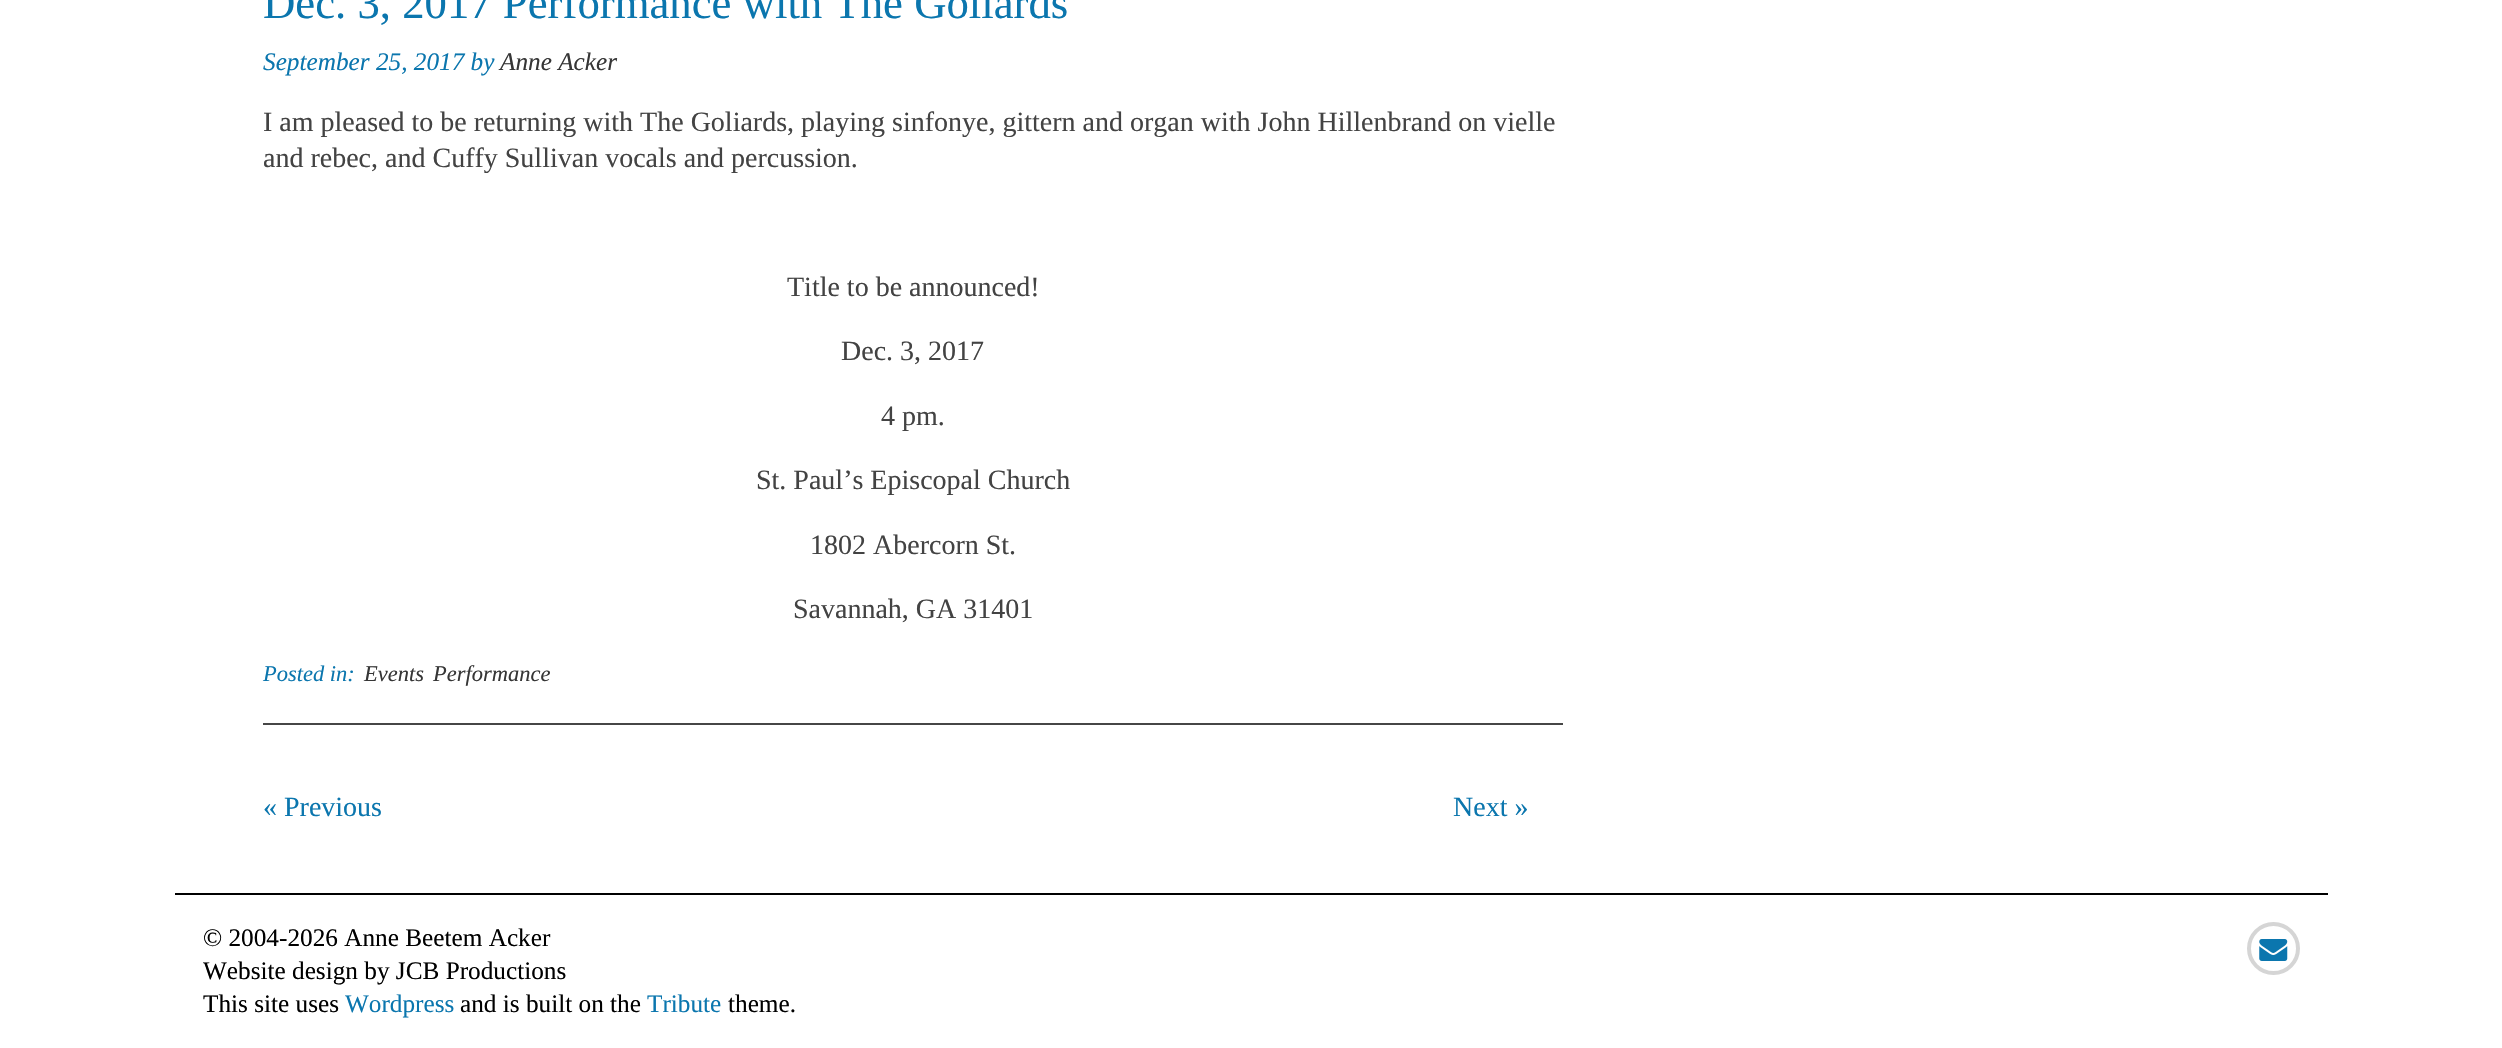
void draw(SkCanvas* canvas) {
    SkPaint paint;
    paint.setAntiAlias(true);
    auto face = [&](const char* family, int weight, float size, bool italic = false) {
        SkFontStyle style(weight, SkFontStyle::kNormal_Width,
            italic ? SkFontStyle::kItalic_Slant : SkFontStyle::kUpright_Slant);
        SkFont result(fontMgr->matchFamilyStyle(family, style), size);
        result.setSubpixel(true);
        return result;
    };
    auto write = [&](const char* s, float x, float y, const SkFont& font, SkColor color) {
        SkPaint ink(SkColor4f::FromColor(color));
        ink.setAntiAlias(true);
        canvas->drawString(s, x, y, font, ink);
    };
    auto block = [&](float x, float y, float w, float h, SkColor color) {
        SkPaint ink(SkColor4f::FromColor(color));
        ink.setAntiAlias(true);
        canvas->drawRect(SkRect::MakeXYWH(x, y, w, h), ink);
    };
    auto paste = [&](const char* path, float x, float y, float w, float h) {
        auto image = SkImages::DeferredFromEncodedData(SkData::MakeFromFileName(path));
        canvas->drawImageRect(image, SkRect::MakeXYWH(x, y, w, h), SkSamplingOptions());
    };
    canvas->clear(SK_ColorWHITE);
    block(263, 723, 1300, 2, SkColorSetRGB(70, 70, 70));
    auto kFont1 = face("Liberation Serif", 400, 44.75f);
    write("Dec. 3, 2017 Performance with The Goliards", 263, 18, kFont1, SkColorSetRGB(11, 118, 174));
    auto kFont2 = face("Liberation Serif", 400, 25.25f, true);
    write("September 25, 2017 by", 263, 70, kFont2, SkColorSetRGB(11, 118, 174));
    write("Anne Acker", 500, 70, kFont2, SkColorSetRGB(54, 54, 54));
    auto kFont3 = face("Liberation Serif", 400, 28);
    write("I am pleased to be returning with The Goliards, playing sinfonye, gittern and organ with John Hillenbrand on vielle", 263, 131, kFont3, SkColorSetRGB(67, 67, 67));
    write("and rebec, and Cuffy Sullivan vocals and percussion.", 263, 167, kFont3, SkColorSetRGB(67, 67, 67));
    write("Title to be announced!", 787, 296, kFont3, SkColorSetRGB(67, 67, 67));
    write("Dec. 3, 2017", 841, 360, kFont3, SkColorSetRGB(67, 67, 67));
    write("4 pm.", 881, 425, kFont3, SkColorSetRGB(67, 67, 67));
    write("St. Paul’s Episcopal Church", 756, 489, kFont3, SkColorSetRGB(67, 67, 67));
    write("1802 Abercorn St.", 810, 554, kFont3, SkColorSetRGB(67, 67, 67));
    write("Savannah, GA 31401", 793, 618, kFont3, SkColorSetRGB(67, 67, 67));
    auto kFont4 = face("Liberation Serif", 400, 22.5f, true);
    write("Posted in:", 263, 681, kFont4, SkColorSetRGB(11, 118, 174));
    write("Events", 364, 681, kFont4, SkColorSetRGB(54, 54, 54));
    write("Performance", 433, 681, kFont4, SkColorSetRGB(54, 54, 54));
    write("« Previous", 263, 816, kFont3, SkColorSetRGB(11, 118, 174));
    write("Next »", 1453, 816, kFont3, SkColorSetRGB(11, 118, 174));
    block(175, 893, 2153, 2, SK_ColorBLACK);
    auto kFont5 = face("Liberation Serif", 400, 25.25f);
    write("© 2004-2026 Anne Beetem Acker", 203, 946, kFont5, SK_ColorBLACK);
    write("Website design by JCB Productions", 203, 979, kFont5, SK_ColorBLACK);
    write("This site uses", 203, 1012, kFont5, SK_ColorBLACK);
    write("Wordpress", 345, 1012, kFont5, SkColorSetRGB(11, 118, 174));
    write("and is built on the", 460, 1012, kFont5, SK_ColorBLACK);
    write("Tribute", 647, 1012, kFont5, SkColorSetRGB(11, 118, 174));
    write("theme.", 728, 1012, kFont5, SK_ColorBLACK);
    paint.setStyle(SkPaint::kStroke_Style);
    paint.setStrokeWidth(4);
    paint.setColor(SkColorSetRGB(213, 213, 213));
    canvas->drawCircle(2273.5f, 948.5f, 24.5f, paint);
    paste("pic1.png", 2259, 939, 29, 22);
}
